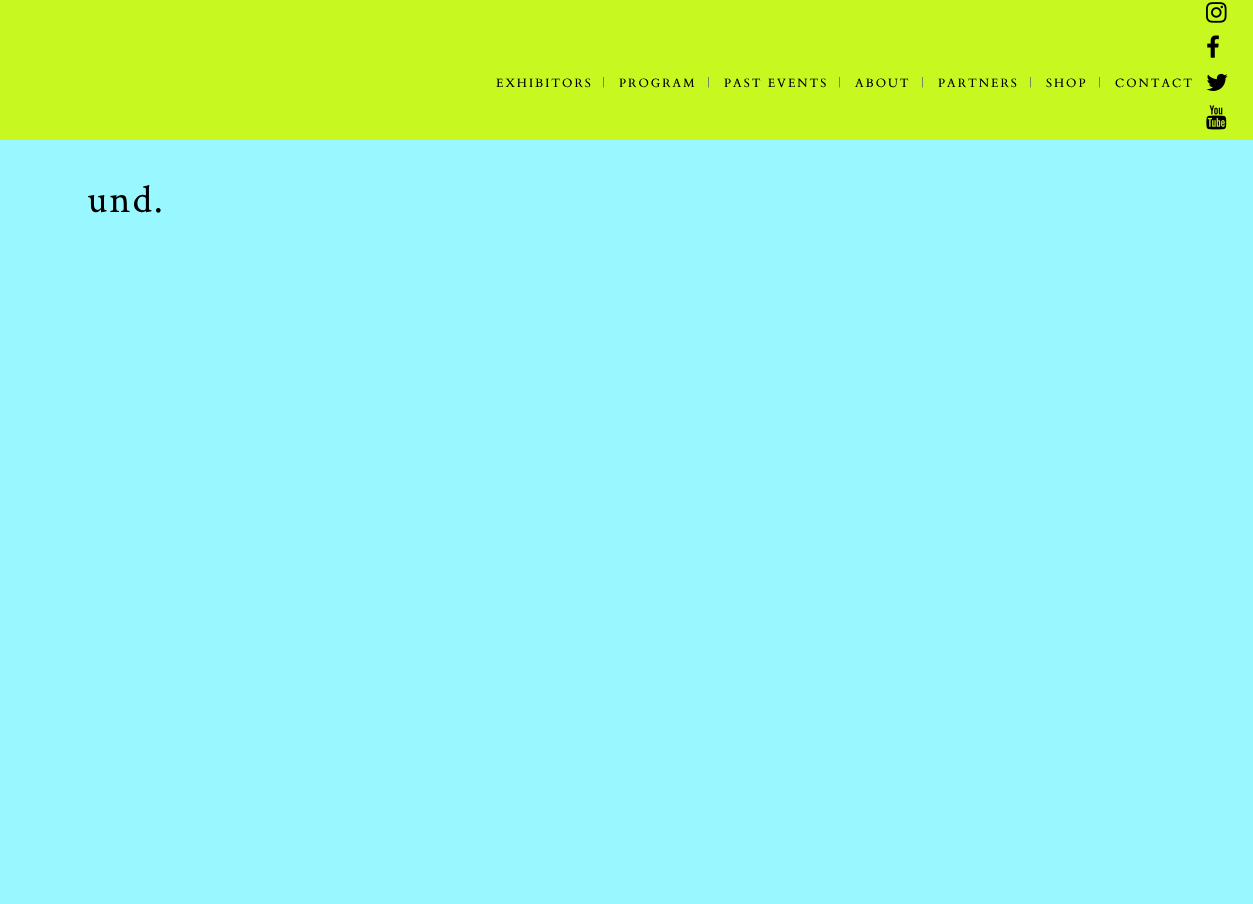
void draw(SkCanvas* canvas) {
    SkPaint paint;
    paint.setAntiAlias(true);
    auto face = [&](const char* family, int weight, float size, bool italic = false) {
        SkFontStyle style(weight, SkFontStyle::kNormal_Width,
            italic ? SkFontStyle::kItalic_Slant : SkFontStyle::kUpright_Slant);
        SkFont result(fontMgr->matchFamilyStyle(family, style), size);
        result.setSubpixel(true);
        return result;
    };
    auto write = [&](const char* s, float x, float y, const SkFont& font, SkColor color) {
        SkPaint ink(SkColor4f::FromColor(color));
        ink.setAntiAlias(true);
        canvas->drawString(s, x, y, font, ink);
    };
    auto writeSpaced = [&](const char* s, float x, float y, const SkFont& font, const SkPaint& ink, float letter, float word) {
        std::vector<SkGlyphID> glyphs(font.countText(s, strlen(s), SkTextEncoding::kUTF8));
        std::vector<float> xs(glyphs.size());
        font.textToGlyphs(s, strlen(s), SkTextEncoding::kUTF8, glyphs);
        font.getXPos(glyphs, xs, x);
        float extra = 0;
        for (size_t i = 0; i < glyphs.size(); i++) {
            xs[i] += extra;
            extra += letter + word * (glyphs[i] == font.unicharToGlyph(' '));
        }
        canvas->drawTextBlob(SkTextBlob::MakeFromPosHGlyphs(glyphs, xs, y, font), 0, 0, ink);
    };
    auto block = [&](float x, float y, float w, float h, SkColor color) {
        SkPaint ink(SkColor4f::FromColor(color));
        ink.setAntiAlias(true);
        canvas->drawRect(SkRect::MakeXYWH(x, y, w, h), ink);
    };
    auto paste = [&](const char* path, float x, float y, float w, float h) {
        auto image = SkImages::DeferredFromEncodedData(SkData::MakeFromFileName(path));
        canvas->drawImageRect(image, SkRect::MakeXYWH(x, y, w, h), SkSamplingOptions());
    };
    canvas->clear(SkColorSetRGB(153, 248, 255));
    block(0, 0, 1253, 140, SkColorSetRGB(199, 249, 32));
    auto kFont1 = face("Cardo", 400, 12);
    paint.setColor(SK_ColorBLACK);
    writeSpaced("EXHIBITORS", 496, 87, kFont1, paint, 2, 0);
    auto kFont2 = face("Crimson Text", 400, 12);
    write("|", 602, 86, kFont2, SkColorSetRGB(105, 105, 105));
    writeSpaced("PROGRAM", 619, 87, kFont1, paint, 2, 0);
    write("|", 707, 86, kFont2, SkColorSetRGB(105, 105, 105));
    writeSpaced("PAST EVENTS", 724, 87, kFont1, paint, 2, 0);
    write("|", 838, 86, kFont2, SkColorSetRGB(105, 105, 105));
    writeSpaced("ABOUT", 855, 87, kFont1, paint, 2, 0);
    write("|", 921, 86, kFont2, SkColorSetRGB(105, 105, 105));
    writeSpaced("PARTNERS", 938, 87, kFont1, paint, 2, 0);
    write("|", 1029, 86, kFont2, SkColorSetRGB(105, 105, 105));
    writeSpaced("SHOP", 1046, 87, kFont1, paint, 2, 0);
    write("|", 1098, 86, kFont2, SkColorSetRGB(105, 105, 105));
    writeSpaced("CONTACT", 1115, 87, kFont1, paint, 2, 0);
    paste("pic1.png", 1206, 2, 21, 21);
    paste("pic2.png", 1207, 35, 12, 23);
    paste("pic3.png", 1206, 73, 22, 18);
    paste("pic4.png", 1206, 105, 21, 25);
    auto kFont3 = face("Crimson Text", 400, 40);
    writeSpaced("und.", 87, 212, kFont3, paint, 2, 0);
}
